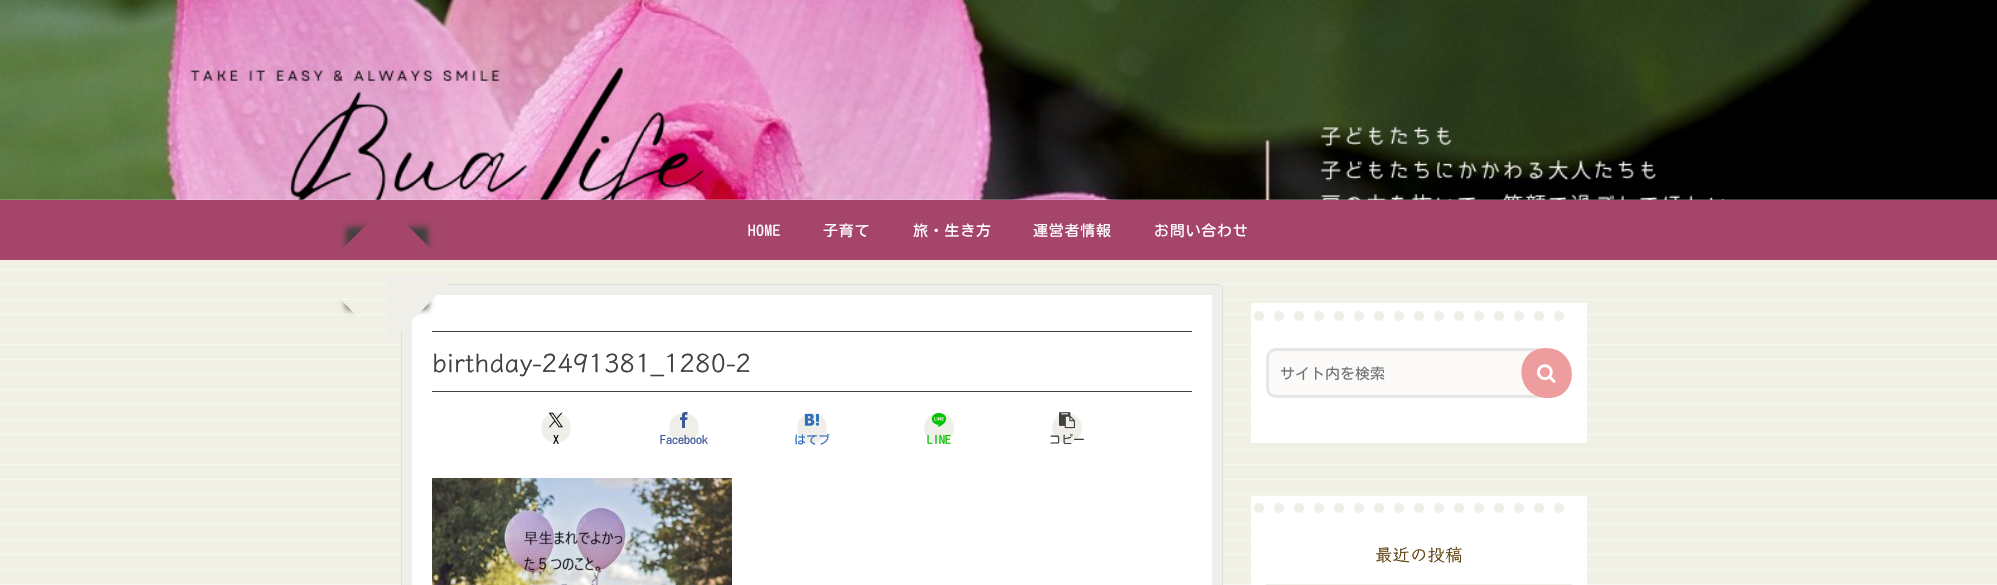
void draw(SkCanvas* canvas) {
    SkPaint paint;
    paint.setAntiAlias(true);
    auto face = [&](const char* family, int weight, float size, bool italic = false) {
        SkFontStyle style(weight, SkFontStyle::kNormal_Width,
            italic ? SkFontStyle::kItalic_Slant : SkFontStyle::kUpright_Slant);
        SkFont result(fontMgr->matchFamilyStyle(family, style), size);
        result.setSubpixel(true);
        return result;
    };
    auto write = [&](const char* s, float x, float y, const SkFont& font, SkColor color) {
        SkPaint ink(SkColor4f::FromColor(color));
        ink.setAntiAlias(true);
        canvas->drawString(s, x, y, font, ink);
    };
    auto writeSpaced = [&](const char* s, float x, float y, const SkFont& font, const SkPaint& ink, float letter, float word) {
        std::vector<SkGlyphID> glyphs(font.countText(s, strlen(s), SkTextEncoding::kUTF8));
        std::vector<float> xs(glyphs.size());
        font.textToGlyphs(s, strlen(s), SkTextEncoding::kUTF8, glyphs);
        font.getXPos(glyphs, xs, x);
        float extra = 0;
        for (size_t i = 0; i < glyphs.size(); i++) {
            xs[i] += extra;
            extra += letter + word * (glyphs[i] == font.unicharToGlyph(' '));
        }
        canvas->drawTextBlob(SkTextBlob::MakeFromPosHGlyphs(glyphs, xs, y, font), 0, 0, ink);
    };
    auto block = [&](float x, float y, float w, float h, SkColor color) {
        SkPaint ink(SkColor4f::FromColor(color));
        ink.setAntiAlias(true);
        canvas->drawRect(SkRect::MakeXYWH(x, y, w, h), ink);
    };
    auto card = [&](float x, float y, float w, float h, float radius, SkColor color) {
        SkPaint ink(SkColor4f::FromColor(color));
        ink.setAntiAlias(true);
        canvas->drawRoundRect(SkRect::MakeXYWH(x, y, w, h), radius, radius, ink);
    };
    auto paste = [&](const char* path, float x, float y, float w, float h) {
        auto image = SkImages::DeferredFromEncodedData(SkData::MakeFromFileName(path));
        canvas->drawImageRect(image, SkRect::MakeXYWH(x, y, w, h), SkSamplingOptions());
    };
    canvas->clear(SkColorSetRGB(241, 240, 229));
    paste("pic1.png", 0, 269, 1997, 316);
    paste("pic2.png", 0, 0, 1997, 200);
    block(0, 200, 1997, 60, SkColorSetRGB(165, 69, 106));
    auto kFont1 = face("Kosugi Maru", 400, 15);
    paint.setColor(SK_ColorWHITE);
    writeSpaced("HOME", 748, 236, kFont1, paint, 0.75f, 0);
    writeSpaced("子育て", 823, 236, kFont1, paint, 0.75f, 0);
    writeSpaced("旅・生き方", 913, 236, kFont1, paint, 0.75f, 0);
    writeSpaced("運営者情報", 1033, 236, kFont1, paint, 0.75f, 0);
    writeSpaced("お問い合わせ", 1154, 236, kFont1, paint, 0.75f, 0);
    card(401, 284, 822, 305, 4, SK_ColorWHITE);
    paint.setStyle(SkPaint::kStroke_Style);
    paint.setStrokeWidth(10);
    paint.setColor(SkColorSetRGB(240, 238, 232));
    canvas->drawPath(SkPathBuilder().moveTo(407, 290).lineTo(1217, 290).lineTo(1217, 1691).lineTo(407, 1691).close().detach(), paint);
    paint.setStrokeWidth(1);
    paint.setColor(SkColorSetRGB(221, 221, 221));
    canvas->drawRoundRect(SkRect::MakeXYWH(401.5f, 284.5f, 821, 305), 3.5f, 3.5f, paint);
    canvas->save();
    canvas->clipPath(SkPathBuilder(SkPathFillType::kEvenOdd).moveTo(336, 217).lineTo(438, 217).lineTo(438, 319).lineTo(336, 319).close().moveTo(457, 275).lineTo(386.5f, 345.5f).lineTo(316, 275).lineTo(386.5f, 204.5f).close().detach(), true);
    paint.setStyle(SkPaint::kFill_Style);
    paint.setColor(SkColorSetRGB(65, 64, 62));
    paint.setMaskFilter(SkMaskFilter::MakeBlur(kNormal_SkBlurStyle, 3));
    canvas->drawRect(SkRect::MakeXYWH(346, 227, 82, 82), paint);
    paint.setMaskFilter(nullptr);
    canvas->restore();
    block(432, 331, 760, 1, SkColorSetRGB(65, 64, 62));
    paint.setColor(SkColorSetRGB(240, 238, 232));
    canvas->drawPath(SkPathBuilder().moveTo(457, 275).lineTo(386, 346).lineTo(386, 275).close().detach(), paint);
    block(432, 391, 760, 1, SkColorSetRGB(65, 64, 62));
    auto kFont2 = face("Klee One", 600, 26);
    write("birthday-2491381_1280-2", 432, 372, kFont2, SkColorSetRGB(65, 64, 62));
    canvas->drawCircle(556, 428, 15.5f, paint);
    paint.setStyle(SkPaint::kStroke_Style);
    paint.setColor(SK_ColorWHITE);
    canvas->drawCircle(556, 428, 15.5f, paint);
    paste("pic3.png", 548, 412, 15, 16);
    auto kFont3 = face("Kosugi Maru", 400, 12);
    write("X", 553, 444, kFont3, SK_ColorBLACK);
    paint.setStyle(SkPaint::kFill_Style);
    paint.setColor(SkColorSetRGB(240, 238, 232));
    canvas->drawCircle(684, 428, 15.5f, paint);
    paint.setStyle(SkPaint::kStroke_Style);
    paint.setColor(SK_ColorWHITE);
    canvas->drawCircle(684, 428, 15.5f, paint);
    paste("pic4.png", 680, 412, 8, 16);
    write("Facebook", 660, 444, kFont3, SkColorSetRGB(59, 89, 152));
    paint.setStyle(SkPaint::kFill_Style);
    paint.setColor(SkColorSetRGB(240, 238, 232));
    canvas->drawCircle(812, 428, 15.5f, paint);
    paint.setStyle(SkPaint::kStroke_Style);
    paint.setColor(SK_ColorWHITE);
    canvas->drawCircle(812, 428, 15.5f, paint);
    paste("pic5.png", 804, 413, 16, 13);
    write("はてブ", 794, 444, kFont3, SkColorSetRGB(44, 110, 189));
    paint.setStyle(SkPaint::kFill_Style);
    paint.setColor(SkColorSetRGB(240, 238, 232));
    canvas->drawCircle(939, 428, 15.5f, paint);
    paint.setStyle(SkPaint::kStroke_Style);
    paint.setColor(SK_ColorWHITE);
    canvas->drawCircle(939, 428, 15.5f, paint);
    paste("pic6.png", 931, 413, 16, 14);
    write("LINE", 927, 444, kFont3, SkColorSetRGB(0, 195, 0));
    paint.setStyle(SkPaint::kFill_Style);
    paint.setColor(SkColorSetRGB(240, 238, 232));
    canvas->drawCircle(1067, 428, 15.5f, paint);
    paint.setStyle(SkPaint::kStroke_Style);
    paint.setColor(SK_ColorWHITE);
    canvas->drawCircle(1067, 428, 15.5f, paint);
    paste("pic7.png", 1059, 412, 16, 17);
    write("コピー", 1049, 444, kFont3, SkColorSetRGB(65, 64, 62));
    paste("pic8.png", 432, 478, 300, 107);
    block(1251, 303, 336, 140, SK_ColorWHITE);
    paint.setStrokeWidth(10);
    paint.setStrokeCap(SkPaint::kRound_Cap);
    paint.setColor(SkColorSetRGB(240, 238, 232));
    paint.setPathEffect(SkDashPathEffect::Make({{0, 20}}, 0));
    canvas->drawPath(SkPathBuilder().moveTo(1259, 316).lineTo(1578, 316).detach(), paint);
    paint.setPathEffect(nullptr);
    card(1266, 348, 281, 50, 10, SkColorSetRGB(251, 250, 248));
    paint.setStrokeWidth(3);
    paint.setStrokeCap(SkPaint::kButt_Cap);
    paint.setColor(SkColorSetARGB(179, 221, 221, 221));
    canvas->drawRoundRect(SkRect::MakeXYWH(1267.5f, 349.5f, 278, 47), 8.5f, 8.5f, paint);
    write("サイト内を検索", 1280, 379, kFont1, SkColorSetRGB(117, 117, 117));
    paint.setStyle(SkPaint::kFill_Style);
    paint.setColor(SkColorSetRGB(237, 157, 157));
    canvas->drawPath(SkPathBuilder().moveTo(1546, 348).cubicTo(1578, 348, 1581, 395, 1551, 398).cubicTo(1514, 401, 1511, 348, 1546, 348).close().detach(), paint);
    paste("pic9.png", 1537, 364, 19, 19);
    block(1251, 496, 336, 89, SK_ColorWHITE);
    paint.setStyle(SkPaint::kStroke_Style);
    paint.setStrokeWidth(10);
    paint.setStrokeCap(SkPaint::kRound_Cap);
    paint.setColor(SkColorSetRGB(240, 238, 232));
    paint.setPathEffect(SkDashPathEffect::Make({{0, 20}}, 0));
    canvas->drawPath(SkPathBuilder().moveTo(1259, 508).lineTo(1578, 508).detach(), paint);
    paint.setPathEffect(nullptr);
    block(1266, 584, 306, 1, SkColorSetRGB(240, 238, 232));
    auto kFont4 = face("Klee One", 600, 17.5f);
    write("最近の投稿", 1375, 561, kFont4, SkColorSetRGB(96, 67, 17));
}
